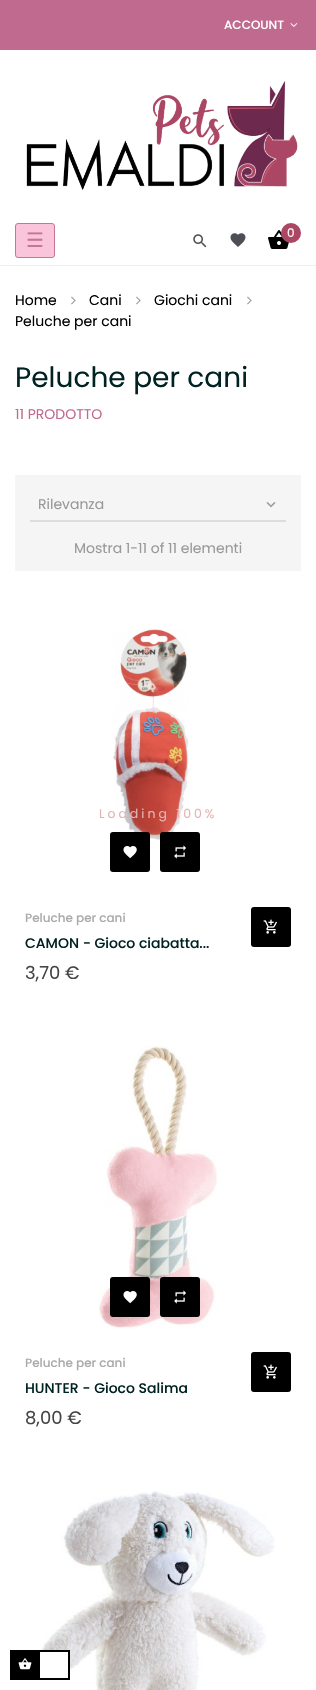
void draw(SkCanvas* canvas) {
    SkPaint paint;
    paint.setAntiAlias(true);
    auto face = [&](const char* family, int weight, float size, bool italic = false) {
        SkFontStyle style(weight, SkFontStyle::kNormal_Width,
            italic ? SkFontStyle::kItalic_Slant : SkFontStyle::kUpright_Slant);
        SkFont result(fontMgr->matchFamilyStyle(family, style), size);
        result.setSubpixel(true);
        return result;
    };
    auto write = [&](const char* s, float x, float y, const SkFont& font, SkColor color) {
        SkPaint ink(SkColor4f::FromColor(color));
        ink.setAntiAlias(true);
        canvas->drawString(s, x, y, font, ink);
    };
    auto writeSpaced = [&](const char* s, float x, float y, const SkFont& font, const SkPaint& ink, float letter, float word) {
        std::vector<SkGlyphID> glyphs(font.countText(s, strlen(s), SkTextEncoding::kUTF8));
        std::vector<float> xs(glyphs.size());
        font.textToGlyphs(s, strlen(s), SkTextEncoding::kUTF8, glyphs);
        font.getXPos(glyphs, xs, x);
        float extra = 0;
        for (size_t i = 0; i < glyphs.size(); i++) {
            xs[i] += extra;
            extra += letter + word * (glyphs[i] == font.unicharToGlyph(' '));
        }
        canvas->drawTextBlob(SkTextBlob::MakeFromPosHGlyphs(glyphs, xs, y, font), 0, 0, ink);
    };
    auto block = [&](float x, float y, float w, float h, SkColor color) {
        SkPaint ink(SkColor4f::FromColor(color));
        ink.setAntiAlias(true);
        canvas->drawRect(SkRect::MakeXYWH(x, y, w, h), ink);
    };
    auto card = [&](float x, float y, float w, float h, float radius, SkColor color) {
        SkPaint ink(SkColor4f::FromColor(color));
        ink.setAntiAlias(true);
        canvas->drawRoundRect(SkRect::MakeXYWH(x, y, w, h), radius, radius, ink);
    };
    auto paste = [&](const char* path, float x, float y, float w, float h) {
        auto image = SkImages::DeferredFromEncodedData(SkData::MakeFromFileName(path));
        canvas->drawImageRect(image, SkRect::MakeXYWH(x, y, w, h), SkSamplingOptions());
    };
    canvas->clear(SK_ColorWHITE);
    block(0, 0, 316, 50, SkColorSetRGB(191, 106, 142));
    auto kFont1 = face("Poppins", 500, 12);
    write("ACCOUNT", 224, 29, kFont1, SK_ColorWHITE);
    paste("pic1.png", 290, 23, 8, 4);
    block(0, 265, 316, 1, SkColorSetRGB(238, 238, 238));
    paste("pic2.png", 26, 81, 272, 110);
    paint.setColor(SkColorSetRGB(250, 196, 218));
    canvas->drawRoundRect(SkRect::MakeXYWH(15.5f, 223.5f, 39, 34), 2.5f, 2.5f, paint);
    paint.setStyle(SkPaint::kStroke_Style);
    paint.setStrokeWidth(1);
    paint.setColor(SkColorSetRGB(198, 117, 151));
    canvas->drawRoundRect(SkRect::MakeXYWH(15.5f, 223.5f, 39, 34), 2.5f, 2.5f, paint);
    auto kFont2 = face("DejaVu Sans", 400, 20);
    write("☰", 26, 247, kFont2, SkColorSetRGB(198, 117, 151));
    paste("pic3.png", 193, 234, 14, 14);
    paste("pic4.png", 230, 233, 16, 14);
    paste("pic5.png", 268, 230, 21, 19);
    paint.setStyle(SkPaint::kFill_Style);
    paint.setColor(SkColorSetRGB(171, 70, 99));
    canvas->drawCircle(291, 233, 10, paint);
    auto kFont3 = face("Poppins", 400, 12);
    write("0", 287, 237, kFont3, SK_ColorWHITE);
    auto kFont4 = face("Poppins", 400, 14);
    write("Home", 15, 305, kFont4, SK_ColorBLACK);
    paste("pic6.png", 71, 296, 5, 9);
    write("Cani", 89, 305, kFont4, SK_ColorBLACK);
    paste("pic6.png", 136, 296, 5, 9);
    write("Giochi cani", 154, 305, kFont4, SK_ColorBLACK);
    paste("pic6.png", 247, 296, 5, 9);
    write("Peluche per cani", 15, 326, kFont4, SK_ColorBLACK);
    auto kFont5 = face("Poppins", 400, 28);
    write("Peluche per cani", 15, 387, kFont5, SkColorSetRGB(0, 34, 34));
    write("11 PRODOTTO", 15, 419, kFont4, SkColorSetRGB(191, 106, 142));
    block(15, 475, 286, 96, SkColorSetRGB(245, 245, 245));
    block(30, 520, 256, 2, SkColorSetRGB(221, 221, 221));
    write("Rilevanza", 38, 509, kFont4, SkColorSetRGB(153, 153, 153));
    paste("pic7.png", 266, 502, 10, 6);
    write("Mostra 1-11 of 11 elementi", 74, 553, kFont4, SkColorSetRGB(153, 153, 153));
    paste("pic8.png", 113, 629, 76, 211);
    card(110, 832, 40, 40, 3, SK_ColorBLACK);
    paste("pic9.png", 123, 846, 14, 13);
    card(160, 832, 40, 40, 3, SK_ColorBLACK);
    paste("pic10.png", 174, 845, 12, 14);
    write("Peluche per cani", 25, 922, kFont1, SkColorSetRGB(170, 170, 170));
    card(251, 907, 40, 40, 3, SK_ColorBLACK);
    paste("pic11.png", 263, 919, 14, 15);
    auto kFont6 = face("Poppins", 500, 14);
    write("CAMON - Gioco ciabatta...", 25, 948, kFont6, SkColorSetRGB(0, 34, 34));
    auto kFont7 = face("Poppins", 400, 18);
    write("3,70 €", 25, 979, kFont7, SkColorSetRGB(68, 68, 68));
    paste("pic12.png", 99, 1046, 118, 284);
    card(110, 1277, 40, 40, 3, SK_ColorBLACK);
    paste("pic9.png", 123, 1291, 14, 13);
    card(160, 1277, 40, 40, 3, SK_ColorBLACK);
    paste("pic10.png", 174, 1290, 12, 14);
    write("Peluche per cani", 25, 1367, kFont1, SkColorSetRGB(170, 170, 170));
    card(251, 1352, 40, 40, 3, SK_ColorBLACK);
    paste("pic11.png", 263, 1364, 14, 15);
    write("HUNTER - Gioco Salima", 25, 1393, kFont6, SkColorSetRGB(0, 34, 34));
    write("8,00 €", 25, 1424, kFont7, SkColorSetRGB(68, 68, 68));
    paste("pic13.png", 40, 1491, 235, 199);
    auto kFont8 = face("Poppins", 400, 12.5f);
    paint.setColor(SkColorSetRGB(227, 181, 178));
    writeSpaced("Loading 100%", 99, 818, kFont8, paint, 3, 0);
    block(10, 1650, 60, 30, SK_ColorBLACK);
    paste("pic14.png", 18, 1658, 14, 12);
    block(40, 1652, 28, 26, SK_ColorWHITE);
}
